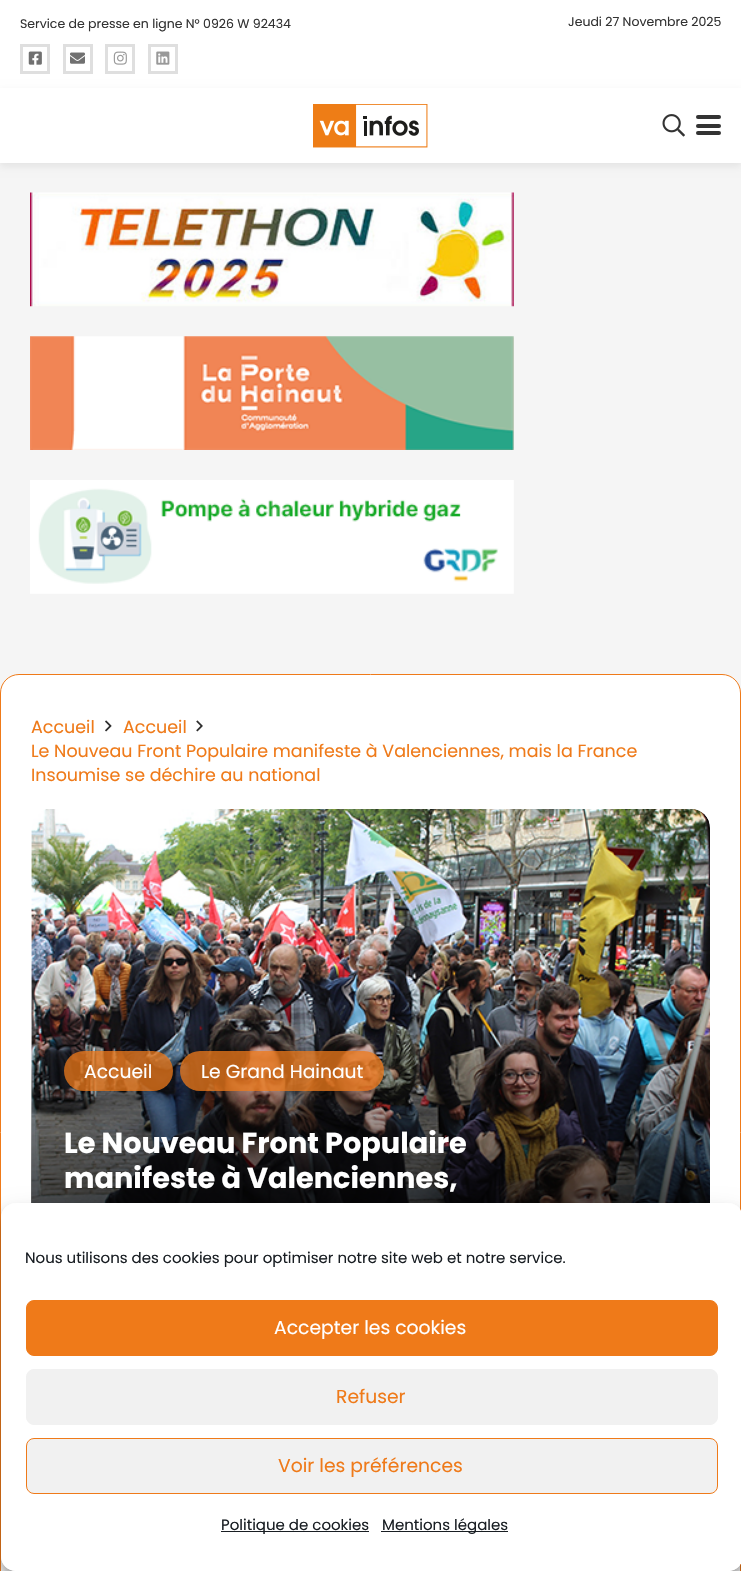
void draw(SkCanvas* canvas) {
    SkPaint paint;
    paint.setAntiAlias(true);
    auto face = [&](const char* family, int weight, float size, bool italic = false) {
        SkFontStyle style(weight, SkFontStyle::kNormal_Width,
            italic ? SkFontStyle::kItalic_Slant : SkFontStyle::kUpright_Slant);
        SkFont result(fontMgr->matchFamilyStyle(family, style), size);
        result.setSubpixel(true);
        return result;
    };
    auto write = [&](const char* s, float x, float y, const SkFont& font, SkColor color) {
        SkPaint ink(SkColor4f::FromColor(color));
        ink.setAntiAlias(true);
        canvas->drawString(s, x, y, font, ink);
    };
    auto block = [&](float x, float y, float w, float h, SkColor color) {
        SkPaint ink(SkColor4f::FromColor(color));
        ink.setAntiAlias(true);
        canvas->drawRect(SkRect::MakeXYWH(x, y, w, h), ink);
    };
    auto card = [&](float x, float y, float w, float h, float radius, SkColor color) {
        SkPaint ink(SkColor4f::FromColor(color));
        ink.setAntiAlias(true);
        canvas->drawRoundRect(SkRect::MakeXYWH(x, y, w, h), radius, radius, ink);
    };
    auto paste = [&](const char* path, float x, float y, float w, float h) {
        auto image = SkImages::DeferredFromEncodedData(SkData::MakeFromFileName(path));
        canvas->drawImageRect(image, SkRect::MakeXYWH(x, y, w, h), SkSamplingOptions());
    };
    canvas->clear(SkColorSetRGB(245, 245, 245));
    block(0, 0, 741, 88, SK_ColorWHITE);
    auto kFont1 = face("Poppins", 400, 12.5f);
    write("Service de presse en ligne N° 0926 W 92434", 20, 28, kFont1, SkColorSetRGB(51, 51, 51));
    paint.setStyle(SkPaint::kStroke_Style);
    paint.setStrokeWidth(3);
    paint.setColor(SkColorSetRGB(223, 223, 223));
    canvas->drawRect(SkRect::MakeXYWH(21.5f, 45.5f, 27, 27), paint);
    paste("pic1.png", 28, 51, 14, 14);
    canvas->drawRect(SkRect::MakeXYWH(64.5f, 45.5f, 27, 27), paint);
    paste("pic2.png", 70, 52, 15, 12);
    canvas->drawRect(SkRect::MakeXYWH(106.5f, 45.5f, 27, 27), paint);
    paste("pic3.png", 113, 51, 14, 14);
    canvas->drawRect(SkRect::MakeXYWH(149.5f, 45.5f, 27, 27), paint);
    paste("pic4.png", 156, 51, 14, 14);
    write("Jeudi 27 Novembre 2025", 568, 26, kFont1, SkColorSetRGB(51, 51, 51));
    paint.setStyle(SkPaint::kFill_Style);
    paint.setColor(SkColorSetARGB(20, 0, 0, 0));
    paint.setMaskFilter(SkMaskFilter::MakeBlur(kNormal_SkBlurStyle, 4));
    canvas->drawRect(SkRect::MakeXYWH(0, 91, 741, 75), paint);
    paint.setMaskFilter(nullptr);
    block(0, 88, 741, 75, SK_ColorWHITE);
    paste("pic5.png", 313, 104, 115, 44);
    paste("pic6.png", 662, 114, 23, 23);
    card(696, 124, 25, 4, 2, SkColorSetRGB(51, 51, 51));
    card(696, 115, 25, 4, 2, SkColorSetRGB(51, 51, 51));
    card(696, 131, 25, 4, 2, SkColorSetRGB(51, 51, 51));
    paste("pic7.png", 30, 192, 484, 115);
    paste("pic8.png", 30, 336, 484, 114);
    paste("pic9.png", 30, 480, 484, 114);
    paint.setColor(SK_ColorWHITE);
    canvas->drawRoundRect(SkRect::MakeXYWH(0.5f, 674.5f, 740, 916), 18.5f, 18.5f, paint);
    paint.setStyle(SkPaint::kStroke_Style);
    paint.setStrokeWidth(1);
    paint.setColor(SkColorSetRGB(239, 122, 25));
    canvas->drawRoundRect(SkRect::MakeXYWH(0.5f, 674.5f, 740, 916), 18.5f, 18.5f, paint);
    auto kFont2 = face("Poppins", 400, 17.5f);
    write("Accueil", 31, 733, kFont2, SkColorSetRGB(239, 122, 25));
    paste("pic10.png", 105, 720, 7, 12);
    write("Accueil", 123, 733, kFont2, SkColorSetRGB(239, 122, 25));
    paste("pic11.png", 196, 720, 7, 12);
    write("Le Nouveau Front Populaire manifeste à Valenciennes, mais la France", 31, 757, kFont2, SkColorSetRGB(239, 122, 25));
    write("Insoumise se déchire au national", 31, 781, kFont2, SkColorSetRGB(239, 122, 25));
    paste("pic12.png", 31, 809, 679, 394);
    paint.setStyle(SkPaint::kFill_Style);
    {
        const SkColor colors[] = {SkColorSetARGB(0, 0, 0, 0), SK_ColorBLACK};
        const float stops[] = {0.45f, 1};
        const SkPoint ends[] = {{371, 809}, {371, 1309}};
        paint.setShader(SkGradientShader::MakeLinear(ends, colors, stops, 2, SkTileMode::kClamp));
        paint.setAlpha(255);
    }
    canvas->drawRect(SkRect::MakeXYWH(31, 1040, 679, 163), paint);
    card(64, 1051, 109, 40, 20, SkColorSetARGB(191, 239, 122, 25));
    auto kFont3 = face("Poppins", 400, 18.75f);
    write("Accueil", 84, 1078, kFont3, SK_ColorWHITE);
    card(180, 1051, 204, 40, 20, SkColorSetARGB(191, 239, 122, 25));
    write("Le Grand Hainaut", 201, 1078, kFont3, SK_ColorWHITE);
    auto kFont4 = face("Poppins", 700, 28.75f);
    write("Le Nouveau Front Populaire", 64, 1153, kFont4, SK_ColorWHITE);
    write("manifeste à Valenciennes,", 64, 1188, kFont4, SK_ColorWHITE);
    canvas->save();
    canvas->clipPath(SkPathBuilder(SkPathFillType::kEvenOdd).moveTo(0, 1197).lineTo(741, 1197).lineTo(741, 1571).lineTo(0, 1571).close().moveTo(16, 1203).lineTo(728, 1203).cubicTo(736.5f, 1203, 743, 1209.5f, 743, 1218).lineTo(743, 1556).cubicTo(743, 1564.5f, 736.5f, 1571, 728, 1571).lineTo(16, 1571).cubicTo(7.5f, 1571, 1, 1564.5f, 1, 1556).lineTo(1, 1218).cubicTo(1, 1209.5f, 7.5f, 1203, 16, 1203).close().detach(), true);
    paint.setShader(nullptr);
    paint.setColor(SkColorSetARGB(59, 0, 0, 0));
    paint.setMaskFilter(SkMaskFilter::MakeBlur(kNormal_SkBlurStyle, 4));
    canvas->drawRoundRect(SkRect::MakeXYWH(1, 1210, 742, 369), 15, 15, paint);
    paint.setMaskFilter(nullptr);
    canvas->restore();
    canvas->save();
    canvas->clipPath(SkPathBuilder(SkPathFillType::kEvenOdd).moveTo(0, 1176).lineTo(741, 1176).lineTo(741, 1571).lineTo(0, 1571).close().moveTo(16, 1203).lineTo(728, 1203).cubicTo(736.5f, 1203, 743, 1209.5f, 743, 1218).lineTo(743, 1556).cubicTo(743, 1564.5f, 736.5f, 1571, 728, 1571).lineTo(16, 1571).cubicTo(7.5f, 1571, 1, 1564.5f, 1, 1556).lineTo(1, 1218).cubicTo(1, 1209.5f, 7.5f, 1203, 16, 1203).close().detach(), true);
    paint.setColor(SkColorSetARGB(48, 0, 0, 0));
    paint.setMaskFilter(SkMaskFilter::MakeBlur(kNormal_SkBlurStyle, 12.5f));
    canvas->drawRoundRect(SkRect::MakeXYWH(1, 1215, 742, 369), 15, 15, paint);
    paint.setMaskFilter(nullptr);
    canvas->restore();
    card(1, 1203, 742, 368, 15, SK_ColorWHITE);
    auto kFont5 = face("Poppins", 400, 15);
    write("Nous utilisons des cookies pour optimiser notre site web et notre service.", 25, 1263, kFont5, SkColorSetRGB(25, 30, 35));
    paint.setColor(SkColorSetRGB(239, 122, 25));
    canvas->drawRoundRect(SkRect::MakeXYWH(26.5f, 1300.5f, 691, 55), 7.5f, 7.5f, paint);
    paint.setStyle(SkPaint::kStroke_Style);
    canvas->drawRoundRect(SkRect::MakeXYWH(26.5f, 1300.5f, 691, 55), 7.5f, 7.5f, paint);
    write("Accepter les cookies", 274, 1334, kFont3, SK_ColorWHITE);
    paint.setStyle(SkPaint::kFill_Style);
    paint.setColor(SkColorSetRGB(241, 241, 241));
    canvas->drawRoundRect(SkRect::MakeXYWH(26.5f, 1369.5f, 691, 55), 7.5f, 7.5f, paint);
    paint.setStyle(SkPaint::kStroke_Style);
    canvas->drawRoundRect(SkRect::MakeXYWH(26.5f, 1369.5f, 691, 55), 7.5f, 7.5f, paint);
    write("Refuser", 336, 1403, kFont3, SkColorSetRGB(239, 122, 25));
    paint.setStyle(SkPaint::kFill_Style);
    canvas->drawRoundRect(SkRect::MakeXYWH(26.5f, 1438.5f, 691, 55), 7.5f, 7.5f, paint);
    paint.setStyle(SkPaint::kStroke_Style);
    paint.setColor(SkColorSetRGB(239, 122, 25));
    canvas->drawRoundRect(SkRect::MakeXYWH(26.5f, 1438.5f, 691, 55), 7.5f, 7.5f, paint);
    write("Voir les préférences", 278, 1472, kFont3, SkColorSetRGB(239, 122, 25));
    block(221, 1531, 148, 1, SkColorSetRGB(25, 30, 35));
    write("Politique de cookies", 221, 1530, kFont5, SkColorSetRGB(25, 30, 35));
    block(381, 1531, 127, 1, SkColorSetRGB(25, 30, 35));
    write("Mentions légales", 382, 1530, kFont5, SkColorSetRGB(25, 30, 35));
}
